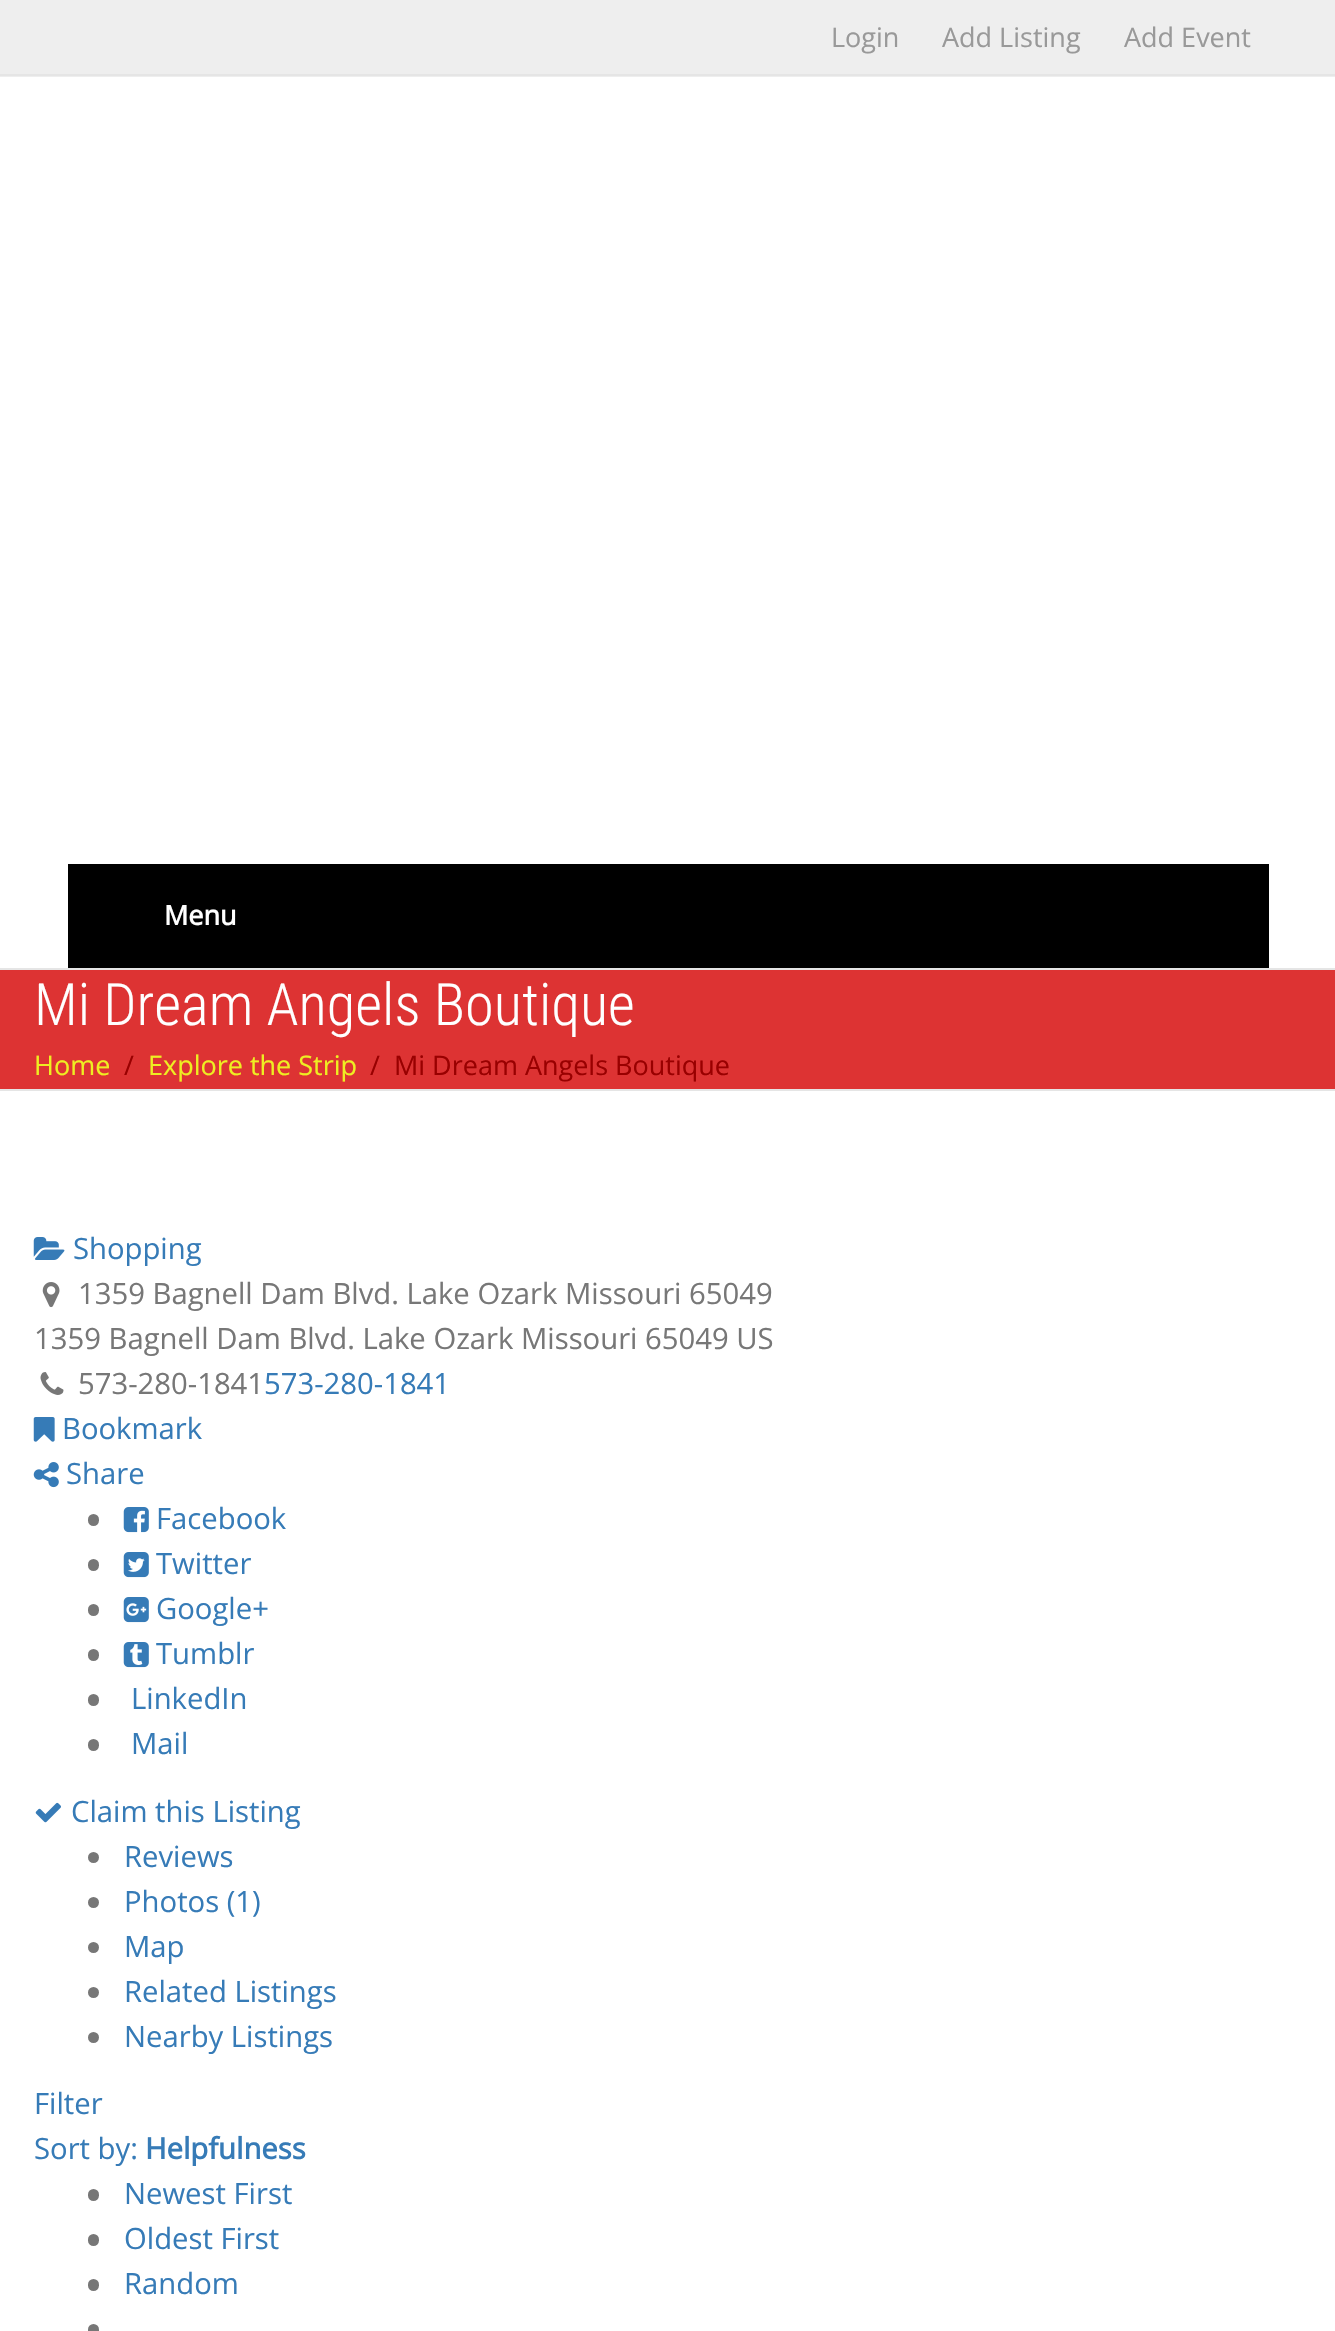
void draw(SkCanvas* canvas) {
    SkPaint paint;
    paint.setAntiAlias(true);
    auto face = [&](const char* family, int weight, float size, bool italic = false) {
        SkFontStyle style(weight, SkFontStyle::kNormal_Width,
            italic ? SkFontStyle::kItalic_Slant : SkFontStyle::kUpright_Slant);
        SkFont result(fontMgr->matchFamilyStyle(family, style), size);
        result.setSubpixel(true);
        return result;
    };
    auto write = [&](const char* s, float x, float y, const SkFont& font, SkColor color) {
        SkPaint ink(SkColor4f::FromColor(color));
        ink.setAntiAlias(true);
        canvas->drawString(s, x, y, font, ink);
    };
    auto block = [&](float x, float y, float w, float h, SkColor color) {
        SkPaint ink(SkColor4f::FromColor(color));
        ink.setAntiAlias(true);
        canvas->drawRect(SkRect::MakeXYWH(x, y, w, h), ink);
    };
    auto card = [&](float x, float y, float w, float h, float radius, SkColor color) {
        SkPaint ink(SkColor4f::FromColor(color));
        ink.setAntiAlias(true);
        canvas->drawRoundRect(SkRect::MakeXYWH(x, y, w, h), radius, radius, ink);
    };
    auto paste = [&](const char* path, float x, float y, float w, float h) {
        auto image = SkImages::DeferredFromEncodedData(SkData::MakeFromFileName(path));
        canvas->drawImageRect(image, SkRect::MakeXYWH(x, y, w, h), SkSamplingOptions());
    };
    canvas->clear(SK_ColorWHITE);
    block(0, 0, 1335, 77, SkColorSetRGB(238, 238, 238));
    block(0, 74, 1335, 2, SkColorSetRGB(229, 229, 229));
    auto kFont1 = face("Open Sans", 400, 27);
    write("Login", 831, 47, kFont1, SkColorSetRGB(153, 153, 153));
    write("Add Listing", 942, 47, kFont1, SkColorSetRGB(153, 153, 153));
    write("Add Event", 1124, 47, kFont1, SkColorSetRGB(153, 153, 153));
    block(0, 968, 1335, 2, SkColorSetRGB(229, 229, 229));
    block(68, 864, 1201, 104, SK_ColorBLACK);
    auto kFont2 = face("Open Sans", 700, 27);
    write("Menu", 164, 925, kFont2, SK_ColorWHITE);
    block(0, 970, 1335, 119, SkColorSetRGB(221, 51, 51));
    block(0, 1089, 1335, 2, SkColorSetRGB(229, 229, 229));
    auto kFont3 = face("Roboto Condensed", 300, 58.5f);
    write("Mi Dream Angels Boutique", 34, 1025, kFont3, SK_ColorWHITE);
    write("Home", 34, 1075, kFont1, SkColorSetRGB(238, 238, 34));
    write("/", 124, 1075, kFont1, SkColorSetRGB(153, 0, 0));
    write("Explore the Strip", 148, 1075, kFont1, SkColorSetRGB(238, 238, 34));
    write("/", 370, 1075, kFont1, SkColorSetRGB(153, 0, 0));
    write("Mi Dream Angels Boutique", 394, 1075, kFont1, SkColorSetRGB(153, 0, 0));
    paste("pic1.png", 33, 1237, 32, 23);
    auto kFont4 = face("Open Sans", 400, 29.25f);
    write("Shopping", 73, 1259, kFont4, SkColorSetRGB(54, 123, 183));
    paste("pic2.png", 42, 1282, 18, 26);
    write("1359 Bagnell Dam Blvd. Lake Ozark Missouri 65049", 78, 1304, kFont4, SkColorSetRGB(119, 119, 119));
    write("1359 Bagnell Dam Blvd. Lake Ozark Missouri 65049 US", 34, 1349, kFont4, SkColorSetRGB(119, 119, 119));
    paste("pic3.png", 40, 1372, 24, 23);
    write("573-280-1841", 78, 1394, kFont4, SkColorSetRGB(119, 119, 119));
    write("573-280-1841", 264, 1394, kFont4, SkColorSetRGB(54, 123, 183));
    paste("pic4.png", 33, 1417, 22, 25);
    write("Bookmark", 62, 1439, kFont4, SkColorSetRGB(54, 123, 183));
    paste("pic5.png", 33, 1462, 26, 26);
    write("Share", 66, 1484, kFont4, SkColorSetRGB(54, 123, 183));
    card(88, 1514, 11, 12, 5.5f, SkColorSetRGB(119, 119, 119));
    paste("pic6.png", 123, 1507, 26, 26);
    write("Facebook", 156, 1529, kFont4, SkColorSetRGB(54, 123, 183));
    card(88, 1559, 11, 12, 5.5f, SkColorSetRGB(119, 119, 119));
    paste("pic7.png", 123, 1552, 26, 26);
    write("Twitter", 156, 1574, kFont4, SkColorSetRGB(54, 123, 183));
    card(88, 1604, 11, 12, 5.5f, SkColorSetRGB(119, 119, 119));
    paste("pic8.png", 123, 1597, 26, 26);
    write("Google+", 156, 1619, kFont4, SkColorSetRGB(54, 123, 183));
    card(88, 1649, 11, 12, 5.5f, SkColorSetRGB(119, 119, 119));
    paste("pic9.png", 123, 1642, 26, 26);
    write("Tumblr", 156, 1664, kFont4, SkColorSetRGB(54, 123, 183));
    card(88, 1694, 11, 12, 5.5f, SkColorSetRGB(119, 119, 119));
    write("LinkedIn", 131, 1709, kFont4, SkColorSetRGB(54, 123, 183));
    card(88, 1739, 11, 12, 5.5f, SkColorSetRGB(119, 119, 119));
    write("Mail", 131, 1754, kFont4, SkColorSetRGB(54, 123, 183));
    paste("pic10.png", 35, 1802, 26, 21);
    write("Claim this Listing", 71, 1822, kFont4, SkColorSetRGB(54, 123, 183));
    paint.setColor(SkColorSetRGB(119, 119, 119));
    canvas->drawCircle(93.5f, 1857.5f, 5.5f, paint);
    write("Reviews", 124, 1867, kFont4, SkColorSetRGB(54, 123, 183));
    canvas->drawCircle(93.5f, 1902.5f, 5.5f, paint);
    write("Photos (1)", 124, 1912, kFont4, SkColorSetRGB(54, 123, 183));
    canvas->drawCircle(93.5f, 1947.5f, 5.5f, paint);
    write("Map", 124, 1957, kFont4, SkColorSetRGB(54, 123, 183));
    canvas->drawCircle(93.5f, 1992.5f, 5.5f, paint);
    write("Related Listings", 124, 2002, kFont4, SkColorSetRGB(54, 123, 183));
    canvas->drawCircle(93.5f, 2037.5f, 5.5f, paint);
    write("Nearby Listings", 124, 2047, kFont4, SkColorSetRGB(54, 123, 183));
    write("Filter", 34, 2114, kFont4, SkColorSetRGB(54, 123, 183));
    write("Sort by:", 34, 2159, kFont4, SkColorSetRGB(54, 123, 183));
    auto kFont5 = face("Open Sans", 700, 29.25f);
    write("Helpfulness", 145, 2159, kFont5, SkColorSetRGB(54, 123, 183));
    card(88, 2189, 11, 12, 5.5f, SkColorSetRGB(119, 119, 119));
    write("Newest First", 124, 2204, kFont4, SkColorSetRGB(54, 123, 183));
    card(88, 2234, 11, 12, 5.5f, SkColorSetRGB(119, 119, 119));
    write("Oldest First", 124, 2249, kFont4, SkColorSetRGB(54, 123, 183));
    card(88, 2279, 11, 12, 5.5f, SkColorSetRGB(119, 119, 119));
    write("Random", 124, 2294, kFont4, SkColorSetRGB(54, 123, 183));
    card(88, 2324, 11, 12, 5.5f, SkColorSetRGB(119, 119, 119));
}
